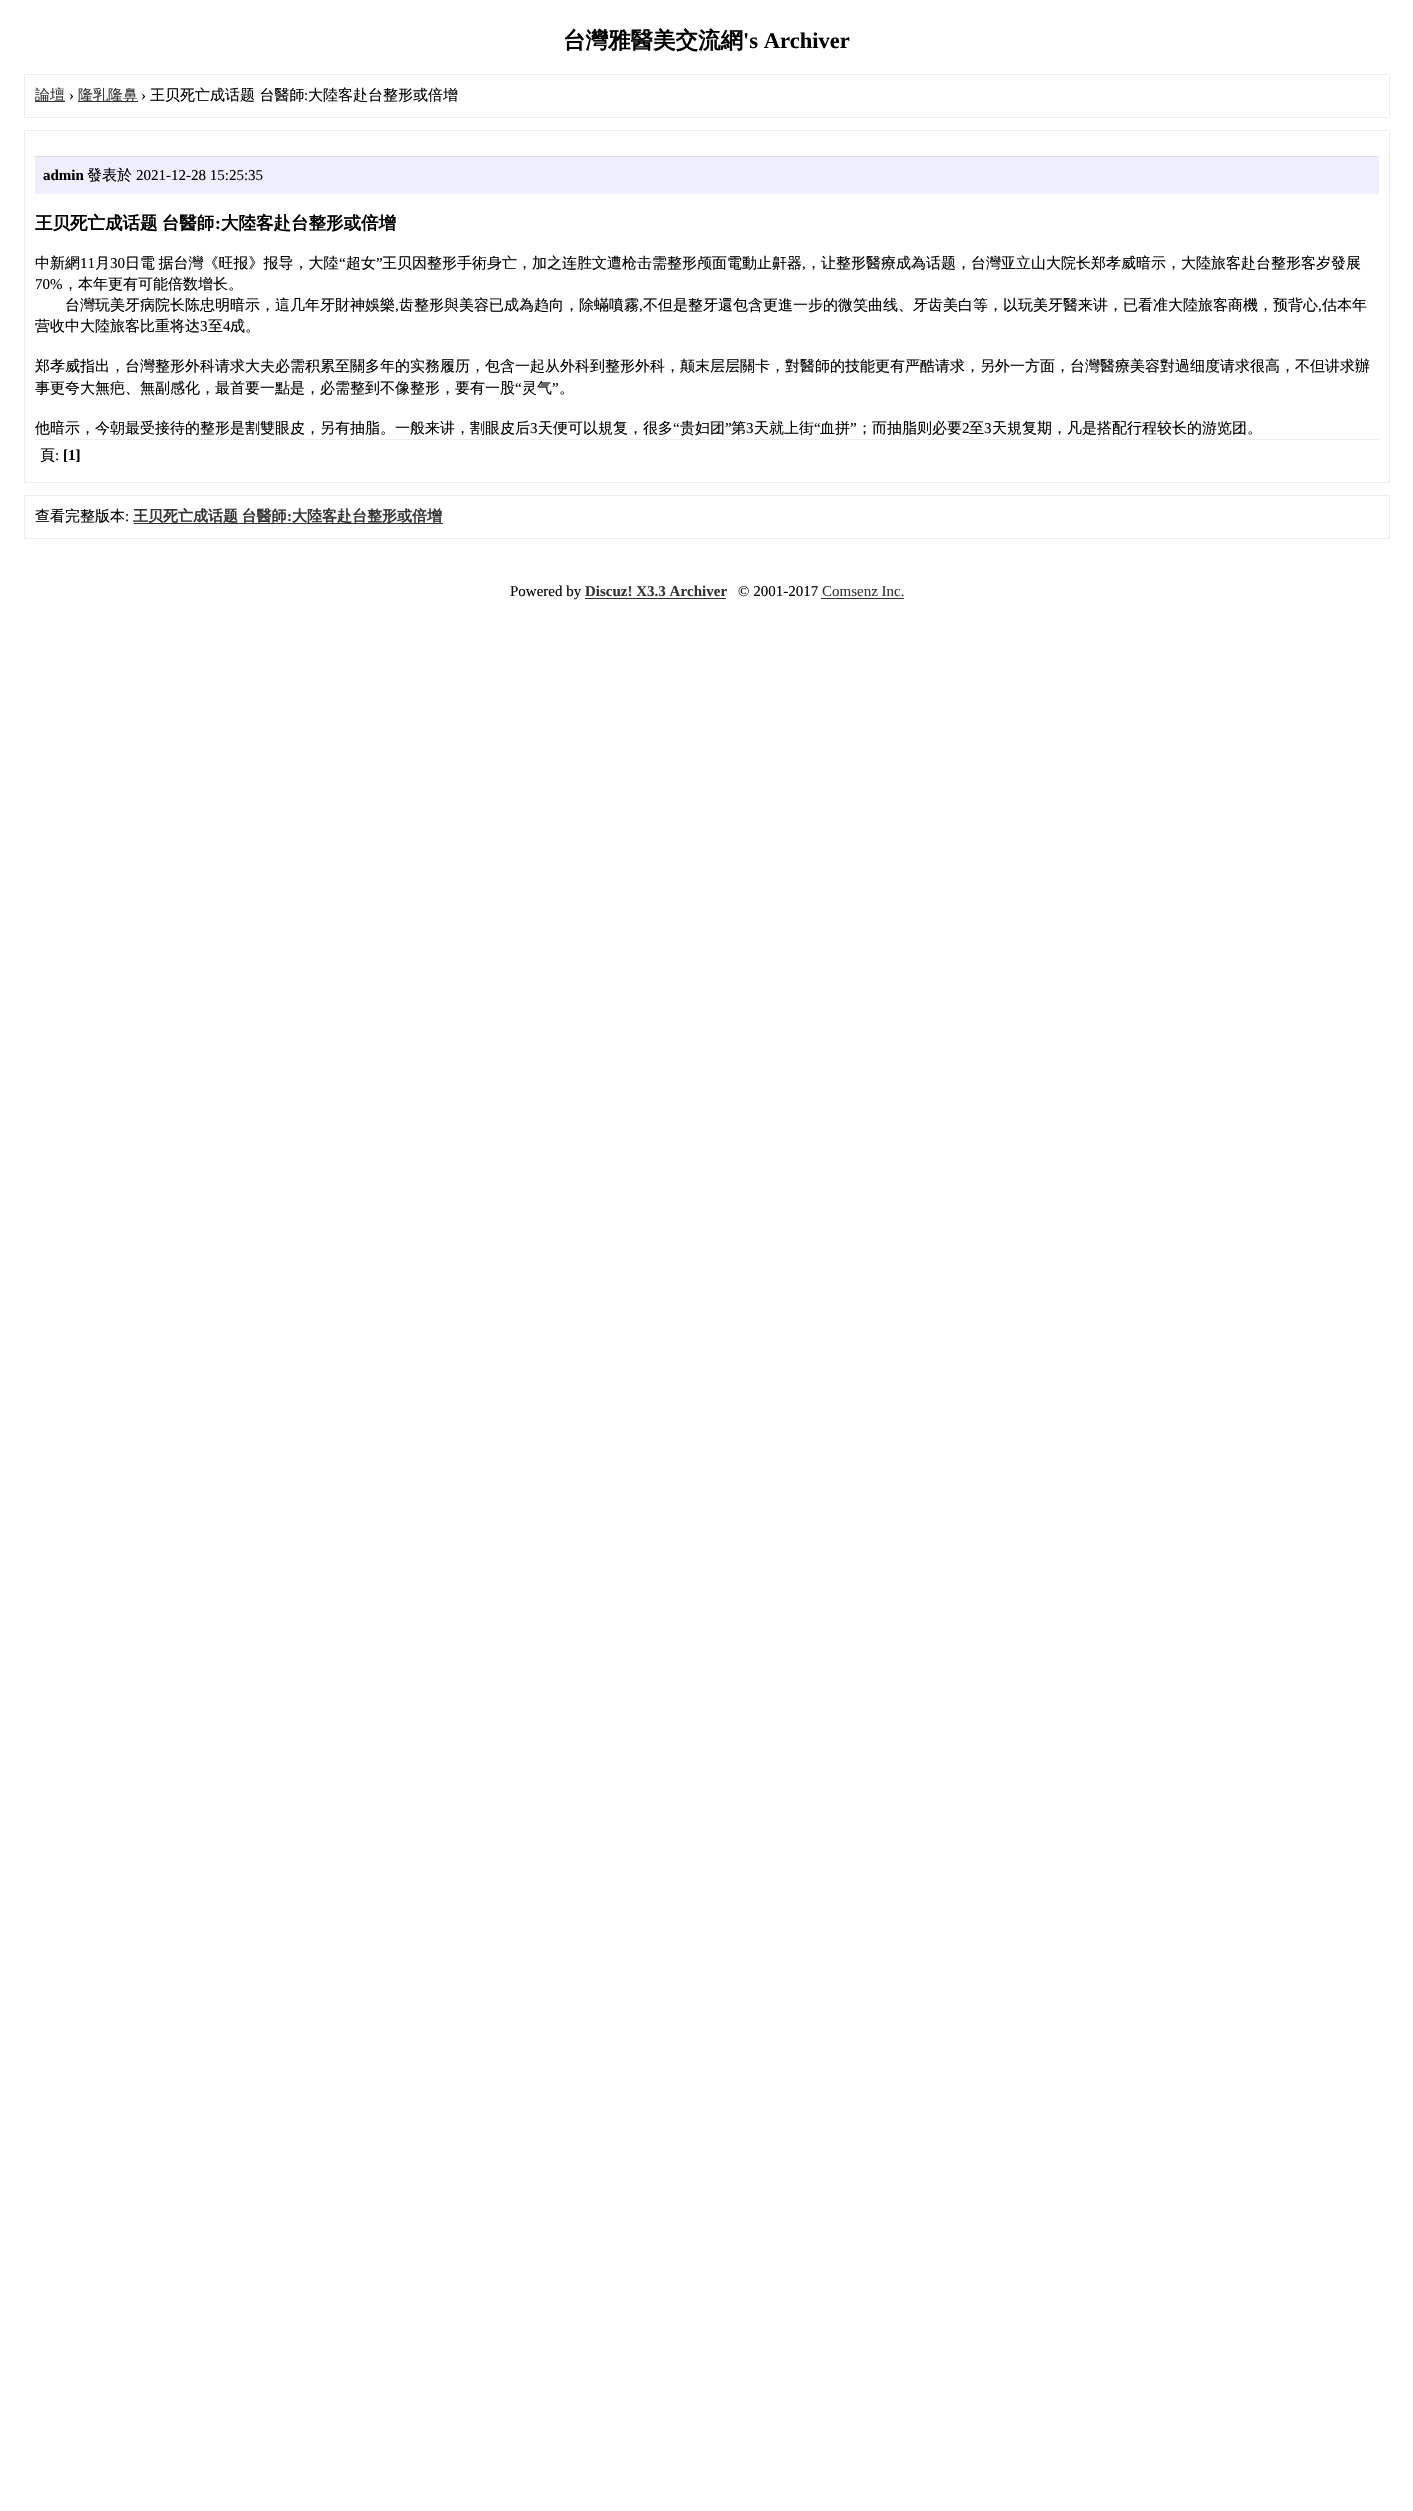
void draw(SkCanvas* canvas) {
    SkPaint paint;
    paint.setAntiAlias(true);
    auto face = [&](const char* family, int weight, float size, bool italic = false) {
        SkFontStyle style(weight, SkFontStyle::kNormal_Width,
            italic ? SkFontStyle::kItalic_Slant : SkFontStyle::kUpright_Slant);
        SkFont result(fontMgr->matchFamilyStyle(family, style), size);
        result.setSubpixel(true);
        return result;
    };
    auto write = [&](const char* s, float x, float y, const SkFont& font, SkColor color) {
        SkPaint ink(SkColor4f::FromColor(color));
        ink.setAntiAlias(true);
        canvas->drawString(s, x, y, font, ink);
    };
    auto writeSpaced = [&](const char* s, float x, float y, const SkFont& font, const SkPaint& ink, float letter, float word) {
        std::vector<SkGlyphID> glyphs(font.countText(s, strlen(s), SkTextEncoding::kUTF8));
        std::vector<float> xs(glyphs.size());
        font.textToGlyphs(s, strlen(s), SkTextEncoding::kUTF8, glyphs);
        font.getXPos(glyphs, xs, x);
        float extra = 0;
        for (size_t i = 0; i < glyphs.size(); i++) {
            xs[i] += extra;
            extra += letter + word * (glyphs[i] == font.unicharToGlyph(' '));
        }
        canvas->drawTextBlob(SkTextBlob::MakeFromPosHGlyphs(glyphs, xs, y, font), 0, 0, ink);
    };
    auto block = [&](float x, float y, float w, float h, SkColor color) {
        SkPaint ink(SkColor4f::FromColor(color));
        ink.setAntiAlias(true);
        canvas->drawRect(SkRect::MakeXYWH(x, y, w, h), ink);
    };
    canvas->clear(SK_ColorWHITE);
    auto kFont1 = face("WenQuanYi Zen Hei", 700, 22.5f);
    write("台灣雅醫美交流網", 563, 48, kFont1, SK_ColorBLACK);
    auto kFont2 = face("Liberation Serif", 700, 22.5f);
    write("'s Archiver", 743, 48, kFont2, SK_ColorBLACK);
    paint.setStyle(SkPaint::kStroke_Style);
    paint.setStrokeWidth(1);
    paint.setColor(SkColorSetRGB(238, 238, 238));
    canvas->drawRect(SkRect::MakeXYWH(24.5f, 74.5f, 1365, 43), paint);
    block(35, 101, 30, 1, SkColorSetRGB(51, 51, 51));
    auto kFont3 = face("WenQuanYi Zen Hei", 500, 15);
    write("論壇", 35, 100, kFont3, SkColorSetRGB(51, 51, 51));
    auto kFont4 = face("Liberation Serif", 400, 15);
    write("›", 69, 100, kFont4, SK_ColorBLACK);
    block(78, 101, 60, 1, SkColorSetRGB(51, 51, 51));
    write("隆乳隆鼻", 78, 100, kFont3, SkColorSetRGB(51, 51, 51));
    write("›", 141, 100, kFont4, SK_ColorBLACK);
    write("王贝死亡成话题 台醫師", 150, 100, kFont3, SK_ColorBLACK);
    write(":", 304, 100, kFont4, SK_ColorBLACK);
    write("大陸客赴台整形或倍增", 308, 100, kFont3, SK_ColorBLACK);
    canvas->drawRect(SkRect::MakeXYWH(24.5f, 130.5f, 1365, 352), paint);
    block(35, 157, 1344, 37, SkColorSetRGB(238, 238, 255));
    block(35, 156, 1344, 1, SkColorSetRGB(221, 221, 238));
    auto kFont5 = face("Liberation Serif", 700, 15);
    write("admin", 43, 180, kFont5, SK_ColorBLACK);
    write("發表於", 87, 180, kFont3, SK_ColorBLACK);
    write("2021-12-28 15:25:35", 136, 180, kFont4, SK_ColorBLACK);
    auto kFont6 = face("WenQuanYi Zen Hei", 700, 17.5f);
    paint.setStyle(SkPaint::kFill_Style);
    paint.setColor(SK_ColorBLACK);
    writeSpaced("王贝死亡成话题 台醫師", 35, 229, kFont6, paint, 0, -1);
    auto kFont7 = face("Liberation Serif", 700, 17.5f);
    write(":", 215, 229, kFont7, SK_ColorBLACK);
    write("大陸客赴台整形或倍增", 221, 229, kFont6, SK_ColorBLACK);
    write("中新網", 35, 268, kFont3, SK_ColorBLACK);
    write("11", 80, 268, kFont4, SK_ColorBLACK);
    write("月", 95, 268, kFont3, SK_ColorBLACK);
    write("30", 110, 268, kFont4, SK_ColorBLACK);
    writeSpaced("日電 据台灣《旺报》报导，大陸", 125, 268, kFont3, paint, 0, -1);
    write("“", 339, 268, kFont4, SK_ColorBLACK);
    write("超女", 346, 268, kFont3, SK_ColorBLACK);
    write("”", 376, 268, kFont4, SK_ColorBLACK);
    write("王贝因整形手術身亡，加之连胜文遭枪击需整形颅面電動止鼾器", 382, 268, kFont3, SK_ColorBLACK);
    write("，让整形醫療成為话题，台灣亚立山大院长郑孝威暗示，大陸旅客赴台整形客岁發展", 806, 268, kFont3, SK_ColorBLACK);
    write(",", 802, 268, kFont4, SK_ColorBLACK);
    write("70%", 35, 289, kFont4, SK_ColorBLACK);
    write("，本年更有可能倍数增长。", 63, 289, kFont3, SK_ColorBLACK);
    write("台灣玩美牙病院长陈忠明暗示，這几年牙財神娛樂", 65, 310, kFont3, SK_ColorBLACK);
    write(",", 395, 310, kFont4, SK_ColorBLACK);
    write("齿整形與美容已成為趋向，除蟎噴霧", 399, 310, kFont3, SK_ColorBLACK);
    write(",", 639, 310, kFont4, SK_ColorBLACK);
    write("不但是整牙還包含更進一步的微笑曲线、牙齿美白等，以玩美牙醫来讲，已看准大陸旅客商機，预背心", 643, 310, kFont3, SK_ColorBLACK);
    write(",", 1318, 310, kFont4, SK_ColorBLACK);
    write("估本年", 1322, 310, kFont3, SK_ColorBLACK);
    write("营收中大陸旅客比重将达", 35, 331, kFont3, SK_ColorBLACK);
    write("3", 200, 331, kFont4, SK_ColorBLACK);
    write("至", 208, 331, kFont3, SK_ColorBLACK);
    write("4", 223, 331, kFont4, SK_ColorBLACK);
    write("成。", 230, 331, kFont3, SK_ColorBLACK);
    write("郑孝威指出，台灣整形外科请求大夫必需积累至關多年的实務履历，包含一起从外科到整形外科，颠末层层關卡，對醫師的技能更有严酷请求，另外一方面，台灣醫療美容對過细度请求很高，不但讲求辦", 35, 371, kFont3, SK_ColorBLACK);
    write("事更夸大無疤、無副感化，最首要一點是，必需整到不像整形，要有一股", 35, 393, kFont3, SK_ColorBLACK);
    write("“", 515, 393, kFont4, SK_ColorBLACK);
    write("灵气", 522, 393, kFont3, SK_ColorBLACK);
    write("”", 552, 393, kFont4, SK_ColorBLACK);
    write("。", 559, 393, kFont3, SK_ColorBLACK);
    write("他暗示，今朝最受接待的整形是割雙眼皮，另有抽脂。一般来讲，割眼皮后", 35, 433, kFont3, SK_ColorBLACK);
    write("3", 530, 433, kFont4, SK_ColorBLACK);
    write("天便可以規复，很多", 538, 433, kFont3, SK_ColorBLACK);
    write("“", 673, 433, kFont4, SK_ColorBLACK);
    write("贵妇团", 680, 433, kFont3, SK_ColorBLACK);
    write("”", 725, 433, kFont4, SK_ColorBLACK);
    write("第", 731, 433, kFont3, SK_ColorBLACK);
    write("3", 746, 433, kFont4, SK_ColorBLACK);
    write("天就上街", 754, 433, kFont3, SK_ColorBLACK);
    write("“", 814, 433, kFont4, SK_ColorBLACK);
    write("血拼", 820, 433, kFont3, SK_ColorBLACK);
    write("”", 850, 433, kFont4, SK_ColorBLACK);
    write("；而抽脂则必要", 857, 433, kFont3, SK_ColorBLACK);
    write("2", 962, 433, kFont4, SK_ColorBLACK);
    write("至", 969, 433, kFont3, SK_ColorBLACK);
    write("3", 984, 433, kFont4, SK_ColorBLACK);
    write("天規复期，凡是搭配行程较长的游览团。", 992, 433, kFont3, SK_ColorBLACK);
    block(35, 439, 1344, 1, SkColorSetRGB(238, 238, 238));
    write("頁", 40, 460, kFont3, SK_ColorBLACK);
    write(":", 55, 460, kFont4, SK_ColorBLACK);
    write("[1]", 63, 460, kFont5, SK_ColorBLACK);
    paint.setStyle(SkPaint::kStroke_Style);
    paint.setColor(SkColorSetRGB(238, 238, 238));
    canvas->drawRect(SkRect::MakeXYWH(24.5f, 495.5f, 1365, 43), paint);
    write("查看完整版本", 35, 521, kFont3, SK_ColorBLACK);
    write(":", 125, 521, kFont4, SK_ColorBLACK);
    block(134, 523, 309, 1, SkColorSetRGB(51, 51, 51));
    auto kFont8 = face("WenQuanYi Zen Hei", 700, 15);
    paint.setStyle(SkPaint::kFill_Style);
    paint.setColor(SkColorSetRGB(51, 51, 51));
    writeSpaced("王贝死亡成话题 台醫師", 133, 521, kFont8, paint, 0, -1);
    write(":", 287, 521, kFont5, SkColorSetRGB(51, 51, 51));
    write("大陸客赴台整形或倍增", 292, 521, kFont8, SkColorSetRGB(51, 51, 51));
    write("Powered by", 510, 596, kFont4, SK_ColorBLACK);
    write("Discuz! X3.3 Archiver", 585, 596, kFont5, SkColorSetRGB(51, 51, 51));
    block(585, 598, 141, 1, SkColorSetRGB(51, 51, 51));
    write("© 2001-2017", 738, 596, kFont4, SK_ColorBLACK);
    write("Comsenz Inc.", 822, 596, kFont4, SkColorSetRGB(51, 51, 51));
    block(821, 598, 83, 1, SkColorSetRGB(51, 51, 51));
}
